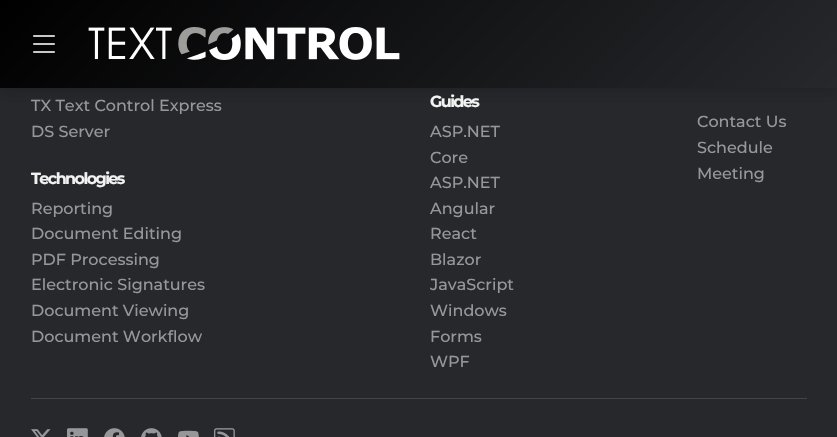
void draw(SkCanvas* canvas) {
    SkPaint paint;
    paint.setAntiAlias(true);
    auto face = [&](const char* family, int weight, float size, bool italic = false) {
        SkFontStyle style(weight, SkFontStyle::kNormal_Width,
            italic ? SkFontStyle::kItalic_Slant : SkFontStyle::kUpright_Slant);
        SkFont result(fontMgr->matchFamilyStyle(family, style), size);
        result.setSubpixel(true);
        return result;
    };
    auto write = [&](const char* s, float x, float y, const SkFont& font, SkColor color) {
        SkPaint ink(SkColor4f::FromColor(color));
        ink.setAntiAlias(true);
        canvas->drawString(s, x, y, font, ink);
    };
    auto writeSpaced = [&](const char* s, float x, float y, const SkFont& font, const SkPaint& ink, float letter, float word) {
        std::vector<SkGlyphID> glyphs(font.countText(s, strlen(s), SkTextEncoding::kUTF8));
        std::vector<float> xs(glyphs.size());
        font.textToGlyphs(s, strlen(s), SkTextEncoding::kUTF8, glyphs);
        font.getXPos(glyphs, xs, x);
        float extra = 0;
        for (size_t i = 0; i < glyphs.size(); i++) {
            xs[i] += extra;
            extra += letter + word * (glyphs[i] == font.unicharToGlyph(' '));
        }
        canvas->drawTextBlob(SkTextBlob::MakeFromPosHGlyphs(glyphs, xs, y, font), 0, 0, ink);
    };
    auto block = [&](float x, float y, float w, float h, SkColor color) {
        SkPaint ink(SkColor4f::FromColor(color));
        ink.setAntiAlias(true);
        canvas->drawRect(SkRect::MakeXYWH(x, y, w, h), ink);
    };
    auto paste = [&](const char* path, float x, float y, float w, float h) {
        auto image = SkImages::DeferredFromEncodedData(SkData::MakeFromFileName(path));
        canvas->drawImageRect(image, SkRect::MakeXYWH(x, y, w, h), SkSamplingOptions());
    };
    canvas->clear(SkColorSetRGB(39, 40, 44));
    paint.setColor(SkColorSetARGB(48, 0, 0, 0));
    paint.setMaskFilter(SkMaskFilter::MakeBlur(kNormal_SkBlurStyle, 8));
    canvas->drawRect(SkRect::MakeXYWH(0, 3, 837, 88), paint);
    paint.setMaskFilter(nullptr);
    {
        const SkColor colors[] = {SK_ColorBLACK, SkColorSetRGB(39, 40, 44)};
        const float stops[] = {0, 1};
        const SkPoint ends[] = {{187, -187}, {650, 275}};
        paint.setShader(SkGradientShader::MakeLinear(ends, colors, stops, 2, SkTileMode::kClamp));
        paint.setAlpha(255);
    }
    canvas->drawRect(SkRect::MakeXYWH(0, 0, 837, 88), paint);
    paste("pic1.png", 88, 27, 312, 33);
    paste("pic2.png", 33, 35, 22, 18);
    auto kFont1 = face("Montserrat", 100, 16);
    write("TX Text Control Express", 31, 111, kFont1, SkColorSetRGB(151, 150, 152));
    write("DS Server", 31, 137, kFont1, SkColorSetRGB(151, 150, 152));
    auto kFont2 = face("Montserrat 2", 100, 16);
    paint.setShader(nullptr);
    paint.setColor(SkColorSetRGB(242, 242, 242));
    writeSpaced("Technologies", 31, 184, kFont2, paint, -1.6f, 0);
    write("Reporting", 31, 214, kFont1, SkColorSetRGB(151, 150, 152));
    write("Document Editing", 31, 239, kFont1, SkColorSetRGB(151, 150, 152));
    write("PDF Processing", 31, 265, kFont1, SkColorSetRGB(151, 150, 152));
    write("Electronic Signatures", 31, 290, kFont1, SkColorSetRGB(151, 150, 152));
    write("Document Viewing", 31, 316, kFont1, SkColorSetRGB(151, 150, 152));
    write("Document Workflow", 31, 342, kFont1, SkColorSetRGB(151, 150, 152));
    writeSpaced("Guides", 430, 107, kFont2, paint, -1.6f, 0);
    write("ASP.NET", 430, 137, kFont1, SkColorSetRGB(151, 150, 152));
    write("Core", 430, 163, kFont1, SkColorSetRGB(151, 150, 152));
    write("ASP.NET", 430, 188, kFont1, SkColorSetRGB(151, 150, 152));
    write("Angular", 430, 214, kFont1, SkColorSetRGB(151, 150, 152));
    write("React", 430, 239, kFont1, SkColorSetRGB(151, 150, 152));
    write("Blazor", 430, 265, kFont1, SkColorSetRGB(151, 150, 152));
    write("JavaScript", 430, 290, kFont1, SkColorSetRGB(151, 150, 152));
    write("Windows", 430, 316, kFont1, SkColorSetRGB(151, 150, 152));
    write("Forms", 430, 342, kFont1, SkColorSetRGB(151, 150, 152));
    write("WPF", 430, 367, kFont1, SkColorSetRGB(151, 150, 152));
    write("Contact Us", 697, 127, kFont1, SkColorSetRGB(151, 150, 152));
    write("Schedule", 697, 153, kFont1, SkColorSetRGB(151, 150, 152));
    write("Meeting", 697, 179, kFont1, SkColorSetRGB(151, 150, 152));
    block(31, 398, 776, 1, SkColorSetRGB(67, 68, 71));
    paste("pic3.png", 31, 429, 20, 8);
    paste("pic4.png", 67, 428, 21, 9);
    paste("pic5.png", 104, 428, 21, 9);
    paste("pic6.png", 141, 428, 21, 9);
    paste("pic7.png", 178, 430, 21, 7);
    paste("pic8.png", 214, 428, 21, 9);
}
